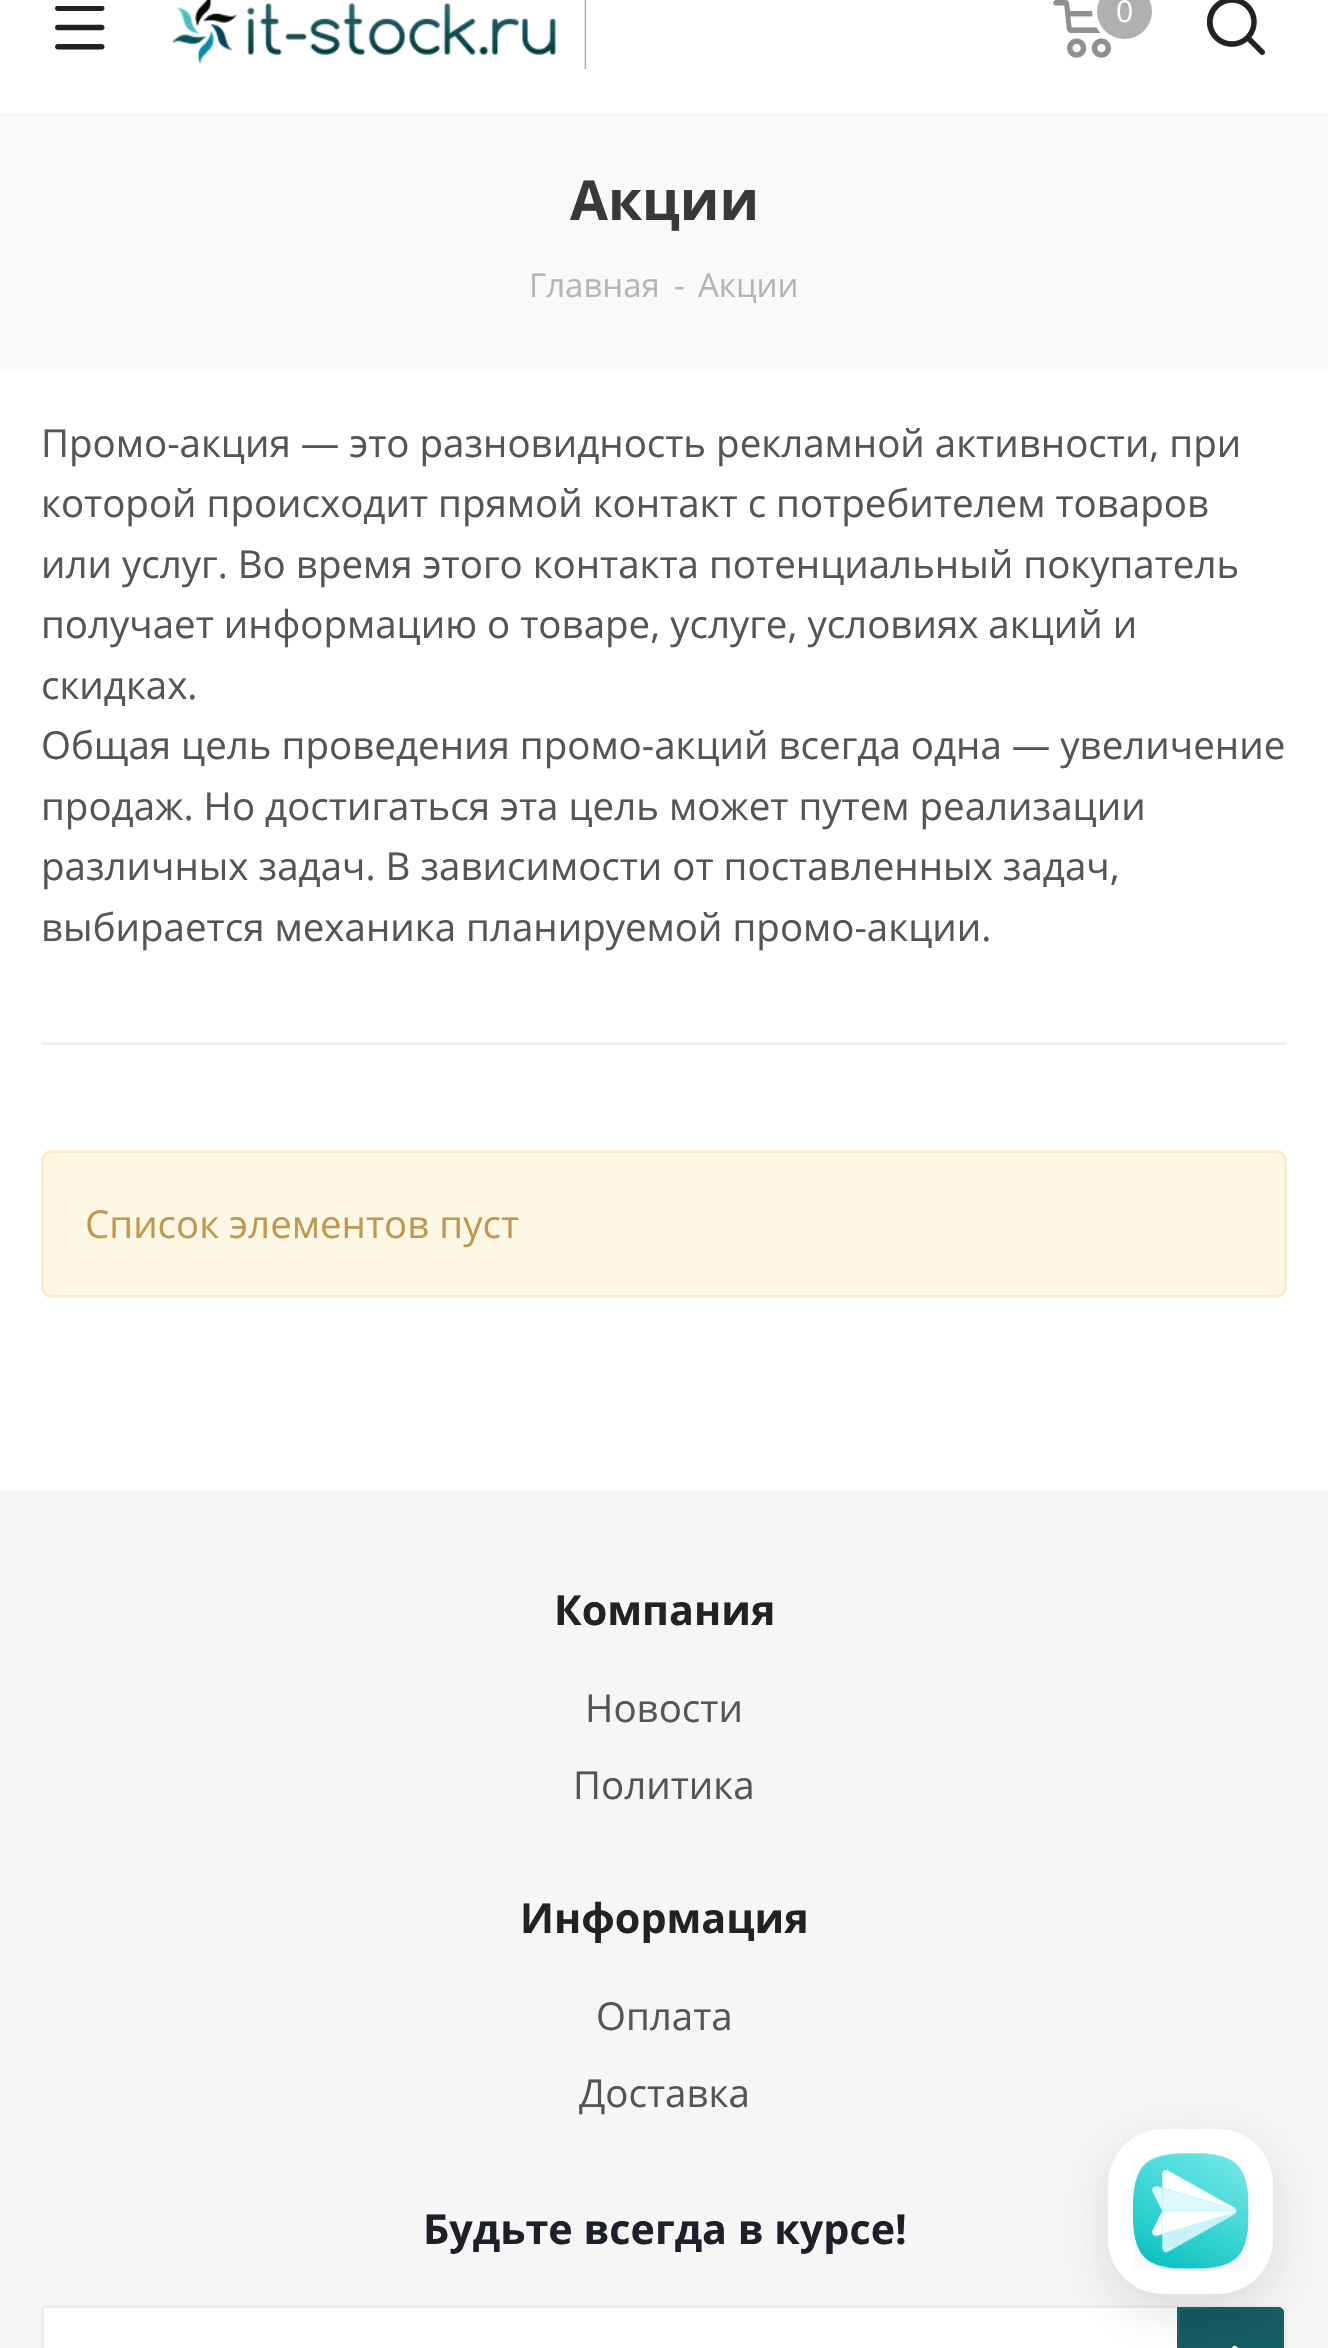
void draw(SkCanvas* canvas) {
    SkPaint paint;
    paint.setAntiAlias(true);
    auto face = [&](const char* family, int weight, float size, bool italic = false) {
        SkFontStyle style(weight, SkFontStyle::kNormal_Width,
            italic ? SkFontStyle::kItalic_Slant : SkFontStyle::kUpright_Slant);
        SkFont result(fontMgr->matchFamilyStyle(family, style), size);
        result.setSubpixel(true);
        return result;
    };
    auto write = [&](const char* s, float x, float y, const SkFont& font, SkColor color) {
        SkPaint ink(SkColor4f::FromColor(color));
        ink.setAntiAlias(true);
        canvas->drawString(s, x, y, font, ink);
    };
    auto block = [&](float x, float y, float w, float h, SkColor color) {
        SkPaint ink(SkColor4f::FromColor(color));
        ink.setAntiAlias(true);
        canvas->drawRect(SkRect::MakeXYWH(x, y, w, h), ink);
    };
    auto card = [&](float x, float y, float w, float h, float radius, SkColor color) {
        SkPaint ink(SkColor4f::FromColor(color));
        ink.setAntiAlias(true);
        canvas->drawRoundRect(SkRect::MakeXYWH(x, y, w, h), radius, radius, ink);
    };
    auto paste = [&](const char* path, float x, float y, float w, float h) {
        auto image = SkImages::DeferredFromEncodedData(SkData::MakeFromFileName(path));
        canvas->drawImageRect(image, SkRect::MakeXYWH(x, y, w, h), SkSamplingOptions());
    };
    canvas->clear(SK_ColorWHITE);
    block(0, 113, 1328, 3, SkColorSetRGB(245, 245, 245));
    paste("pic1.png", 55, 6, 50, 44);
    paste("pic2.png", 172, 0, 415, 70);
    paste("pic3.png", 1053, 0, 58, 58);
    paint.setStyle(SkPaint::kStroke_Style);
    paint.setStrokeWidth(6);
    paint.setColor(SK_ColorWHITE);
    canvas->drawCircle(1125, 11, 30, paint);
    paint.setStyle(SkPaint::kFill_Style);
    paint.setColor(SkColorSetRGB(176, 176, 176));
    canvas->drawCircle(1124.5f, 11.5f, 27.5f, paint);
    auto kFont1 = face("Open Sans", 400, 30);
    write("0", 1116, 22, kFont1, SK_ColorWHITE);
    paste("pic4.png", 1207, 0, 58, 55);
    block(0, 116, 1328, 255, SkColorSetRGB(249, 249, 249));
    auto kFont2 = face("Open Sans", 700, 55);
    write("Акции", 570, 220, kFont2, SkColorSetRGB(56, 56, 56));
    auto kFont3 = face("Open Sans", 400, 33);
    write("Главная", 529, 297, kFont3, SkColorSetRGB(182, 181, 181));
    write("-", 674, 297, kFont3, SkColorSetRGB(182, 181, 181));
    write("Акции", 698, 297, kFont3, SkColorSetRGB(182, 181, 181));
    auto kFont4 = face("Open Sans", 400, 38.5f);
    write("Промо-акция — это разновидность рекламной активности, при", 41, 457, kFont4, SkColorSetRGB(85, 85, 85));
    write("которой происходит прямой контакт с потребителем товаров", 41, 517, kFont4, SkColorSetRGB(85, 85, 85));
    write("или услуг. Во время этого контакта потенциальный покупатель", 41, 578, kFont4, SkColorSetRGB(85, 85, 85));
    write("получает информацию о товаре, услуге, условиях акций и", 41, 638, kFont4, SkColorSetRGB(85, 85, 85));
    write("скидках.", 41, 699, kFont4, SkColorSetRGB(85, 85, 85));
    write("Общая цель проведения промо-акций всегда одна — увеличение", 41, 759, kFont4, SkColorSetRGB(85, 85, 85));
    write("продаж. Но достигаться эта цель может путем реализации", 41, 820, kFont4, SkColorSetRGB(85, 85, 85));
    write("различных задач. В зависимости от поставленных задач,", 41, 880, kFont4, SkColorSetRGB(85, 85, 85));
    write("выбирается механика планируемой промо-акции.", 41, 941, kFont4, SkColorSetRGB(85, 85, 85));
    block(41, 1042, 1246, 3, SkColorSetRGB(240, 240, 240));
    paint.setColor(SkColorSetRGB(252, 248, 227));
    canvas->drawRoundRect(SkRect::MakeXYWH(42.5f, 1151.5f, 1243, 145), 9.5f, 9.5f, paint);
    paint.setStyle(SkPaint::kStroke_Style);
    paint.setStrokeWidth(3);
    paint.setColor(SkColorSetRGB(250, 235, 204));
    canvas->drawRoundRect(SkRect::MakeXYWH(42.5f, 1151.5f, 1243, 145), 9.5f, 9.5f, paint);
    write("Список элементов пуст", 85, 1238, kFont4, SkColorSetRGB(192, 152, 83));
    block(0, 1491, 1328, 857, SkColorSetRGB(246, 246, 247));
    auto kFont5 = face("Open Sans", 700, 41.25f);
    write("Компания", 554, 1625, kFont5, SkColorSetRGB(34, 34, 34));
    write("Новости", 585, 1722, kFont4, SkColorSetRGB(85, 85, 85));
    write("Политика", 573, 1799, kFont4, SkColorSetRGB(85, 85, 85));
    write("Информация", 520, 1933, kFont5, SkColorSetRGB(34, 34, 34));
    write("Оплата", 596, 2030, kFont4, SkColorSetRGB(85, 85, 85));
    write("Доставка", 579, 2107, kFont4, SkColorSetRGB(85, 85, 85));
    write("Будьте всегда в курсе!", 423, 2244, kFont5, SkColorSetRGB(29, 32, 41));
    paint.setStyle(SkPaint::kFill_Style);
    paint.setColor(SK_ColorWHITE);
    canvas->drawRoundRect(SkRect::MakeXYWH(42.5f, 2306.5f, 1243, 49), 4.5f, 4.5f, paint);
    paint.setStyle(SkPaint::kStroke_Style);
    paint.setColor(SkColorSetRGB(238, 238, 238));
    canvas->drawRoundRect(SkRect::MakeXYWH(42.5f, 2306.5f, 1243, 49), 4.5f, 4.5f, paint);
    paint.setStyle(SkPaint::kFill_Style);
    paint.setColor(SkColorSetRGB(19, 90, 96));
    canvas->drawPath(SkPathBuilder().moveTo(1177, 2307).lineTo(1278, 2307).cubicTo(1281.5f, 2307, 1284, 2309.5f, 1284, 2313).lineTo(1284, 2348).cubicTo(1284, 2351.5f, 1281.5f, 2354, 1278, 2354).lineTo(1177, 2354).close().detach(), paint);
    paste("pic5.png", 1232, 2345, 6, 3);
    paint.setStyle(SkPaint::kStroke_Style);
    paint.setColor(SkColorSetRGB(21, 98, 104));
    canvas->drawPath(SkPathBuilder().moveTo(1178.5f, 2308.5f).lineTo(1278, 2308.5f).cubicTo(1280.5f, 2308.5f, 1282.5f, 2310.5f, 1282.5f, 2313).lineTo(1282.5f, 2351).cubicTo(1282.5f, 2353.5f, 1280.5f, 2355.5f, 1278, 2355.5f).lineTo(1178.5f, 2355.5f).close().detach(), paint);
    paint.setStyle(SkPaint::kFill_Style);
    paint.setColor(SkColorSetARGB(33, 14, 21, 47));
    paint.setMaskFilter(SkMaskFilter::MakeBlur(kNormal_SkBlurStyle, 25));
    canvas->drawRoundRect(SkRect::MakeXYWH(1108, 2145, 165, 165), 55, 55, paint);
    paint.setMaskFilter(nullptr);
    card(1108, 2129, 165, 165, 55, SK_ColorWHITE);
    paste("pic6.png", 1133, 2153, 116, 117);
}
